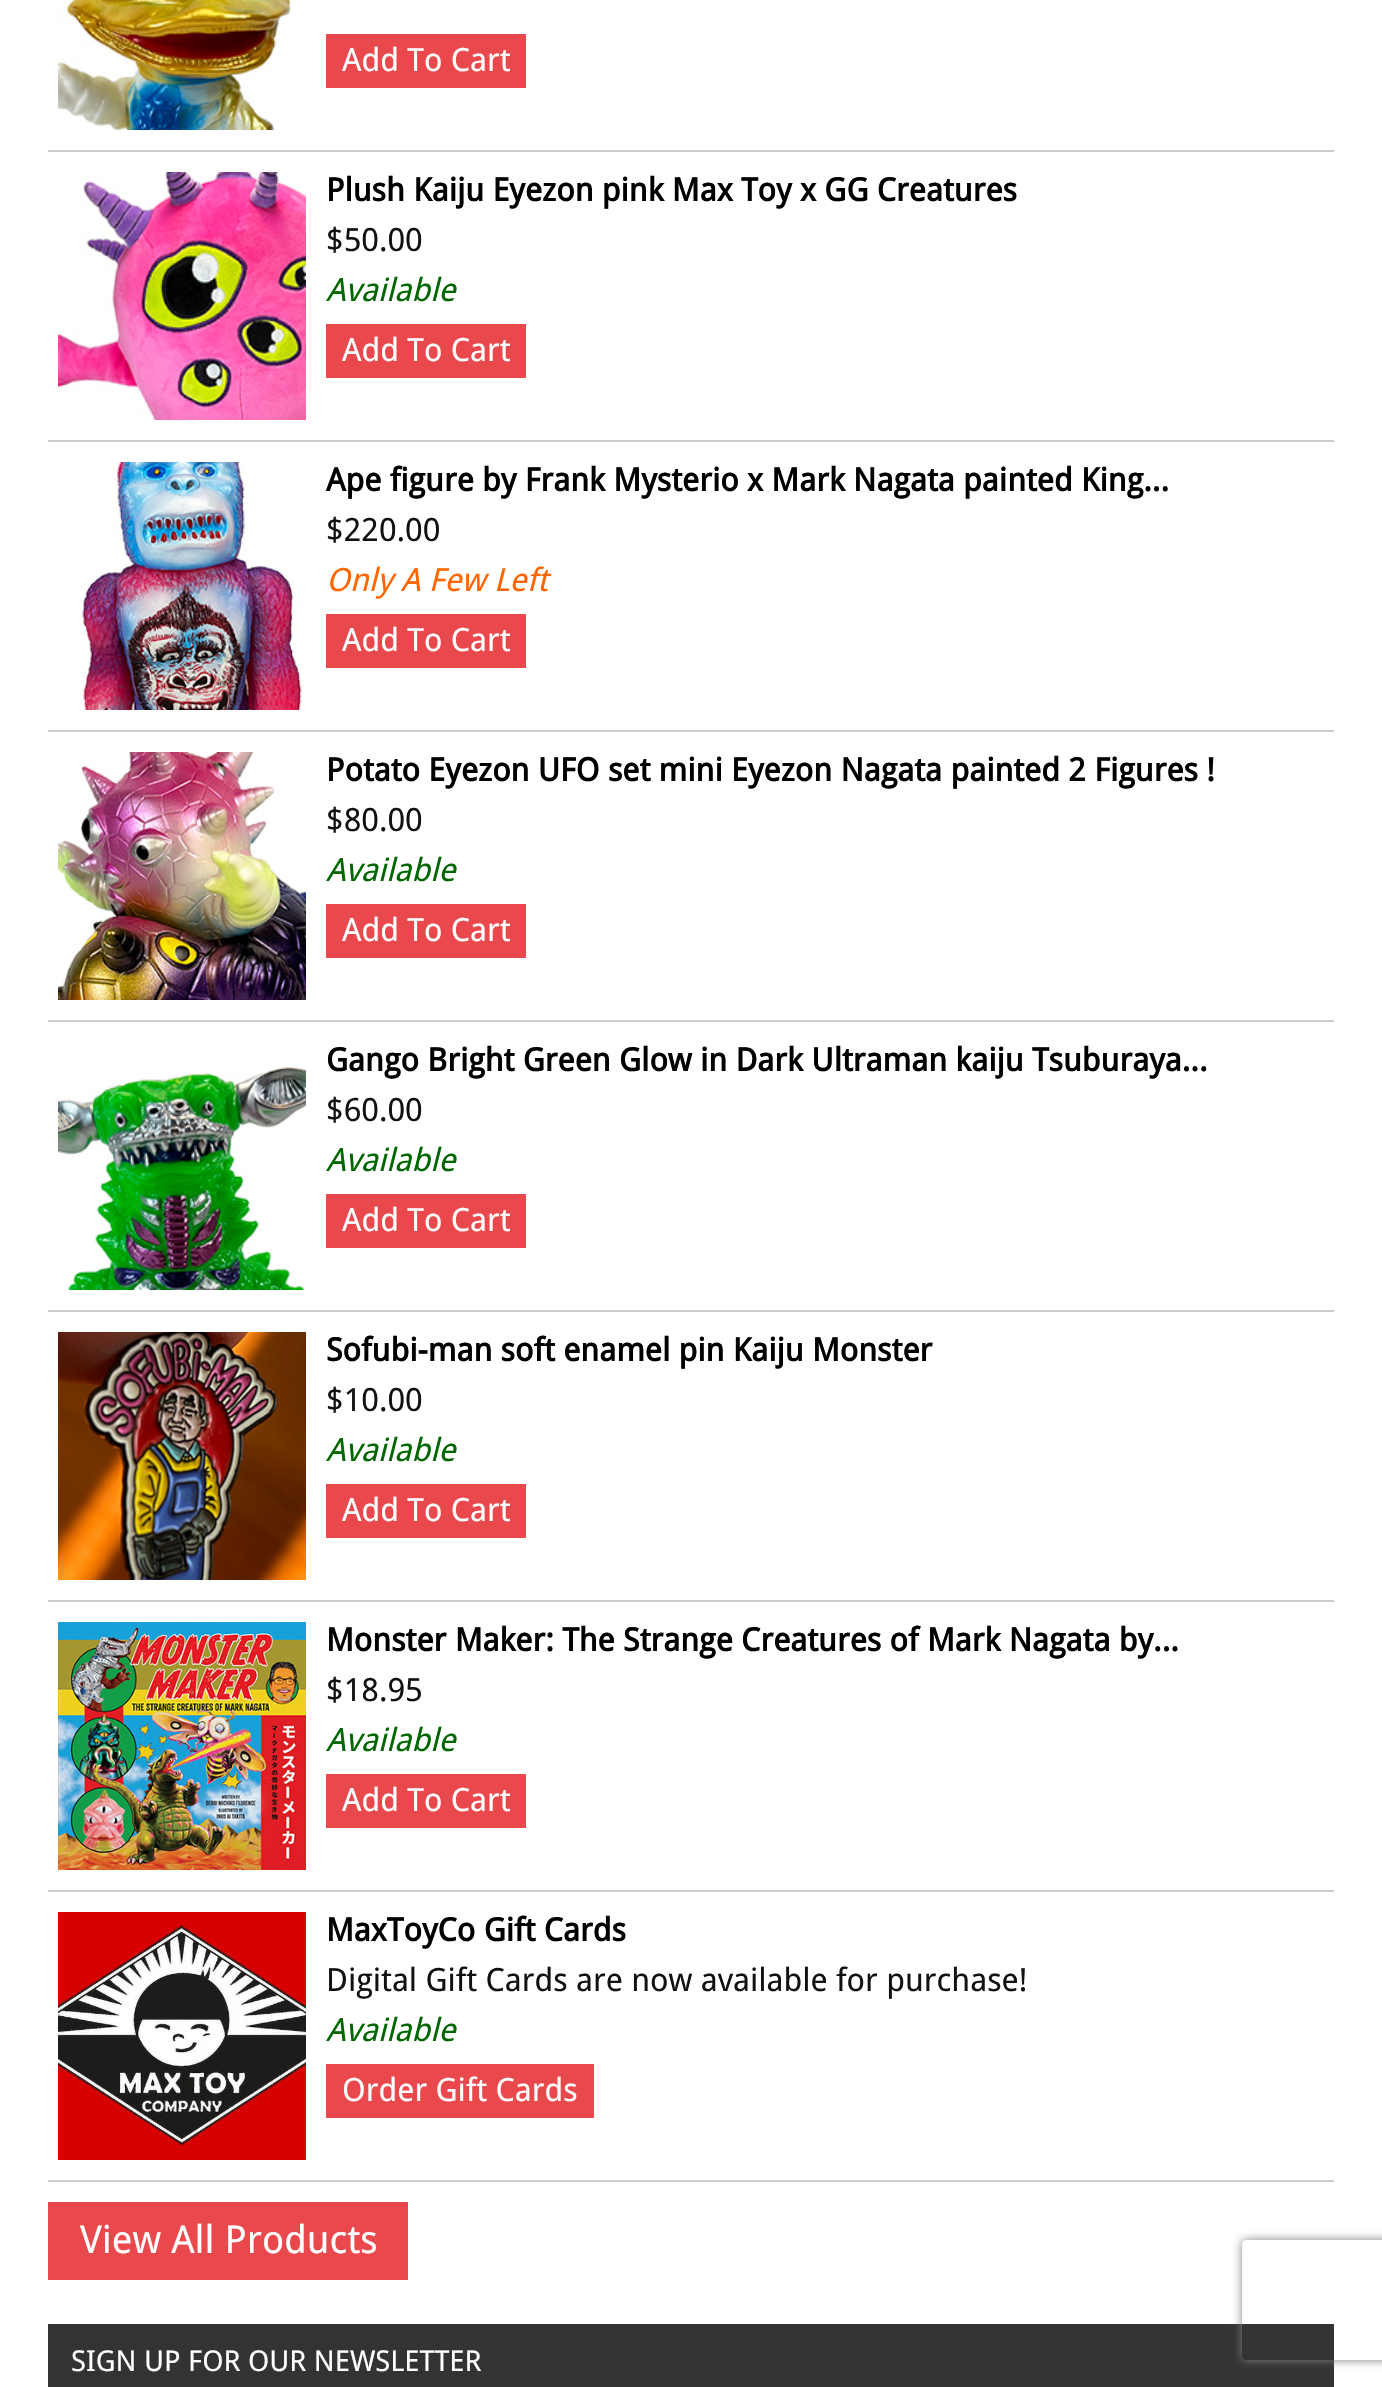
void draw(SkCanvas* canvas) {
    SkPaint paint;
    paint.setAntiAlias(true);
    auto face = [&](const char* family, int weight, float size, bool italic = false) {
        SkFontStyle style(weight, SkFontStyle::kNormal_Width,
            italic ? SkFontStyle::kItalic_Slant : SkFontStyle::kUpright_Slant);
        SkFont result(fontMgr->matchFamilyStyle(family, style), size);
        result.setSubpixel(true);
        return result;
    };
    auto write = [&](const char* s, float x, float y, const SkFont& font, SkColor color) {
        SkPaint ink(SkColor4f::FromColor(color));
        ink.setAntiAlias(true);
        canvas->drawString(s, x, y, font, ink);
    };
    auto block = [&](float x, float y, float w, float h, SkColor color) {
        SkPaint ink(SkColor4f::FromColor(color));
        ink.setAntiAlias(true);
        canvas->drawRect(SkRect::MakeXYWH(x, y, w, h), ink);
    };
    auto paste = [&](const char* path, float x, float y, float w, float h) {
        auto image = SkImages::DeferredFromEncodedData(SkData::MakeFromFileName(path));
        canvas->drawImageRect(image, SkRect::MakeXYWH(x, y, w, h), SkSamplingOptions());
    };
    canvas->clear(SK_ColorWHITE);
    block(48, 150, 1286, 2, SkColorSetRGB(204, 204, 204));
    paste("pic1.png", 58, 0, 233, 130);
    block(326, 34, 200, 54, SkColorSetRGB(233, 73, 76));
    auto kFont1 = face("Droid Sans", 400, 32);
    write("Add To Cart", 342, 71, kFont1, SK_ColorWHITE);
    block(48, 440, 1286, 2, SkColorSetRGB(204, 204, 204));
    paste("pic2.png", 58, 172, 248, 248);
    auto kFont2 = face("Droid Sans", 700, 32);
    write("Plush Kaiju Eyezon pink Max Toy x GG Creatures", 326, 201, kFont2, SK_ColorBLACK);
    write("$50.00", 326, 251, kFont1, SkColorSetRGB(17, 17, 17));
    auto kFont3 = face("Droid Sans", 400, 32, true);
    write("Available", 326, 301, kFont3, SkColorSetRGB(0, 102, 0));
    block(326, 324, 200, 54, SkColorSetRGB(233, 73, 76));
    write("Add To Cart", 342, 361, kFont1, SK_ColorWHITE);
    block(48, 730, 1286, 2, SkColorSetRGB(204, 204, 204));
    paste("pic3.png", 82, 462, 220, 248);
    write("Ape figure by Frank Mysterio x Mark Nagata painted King...", 326, 491, kFont2, SK_ColorBLACK);
    write("$220.00", 326, 541, kFont1, SkColorSetRGB(17, 17, 17));
    write("Only A Few Left", 326, 591, kFont3, SkColorSetRGB(255, 102, 0));
    block(326, 614, 200, 54, SkColorSetRGB(233, 73, 76));
    write("Add To Cart", 342, 651, kFont1, SK_ColorWHITE);
    block(48, 1020, 1286, 2, SkColorSetRGB(204, 204, 204));
    paste("pic4.png", 58, 752, 248, 248);
    write("Potato Eyezon UFO set mini Eyezon Nagata painted 2 Figures !", 326, 781, kFont2, SK_ColorBLACK);
    write("$80.00", 326, 831, kFont1, SkColorSetRGB(17, 17, 17));
    write("Available", 326, 881, kFont3, SkColorSetRGB(0, 102, 0));
    block(326, 904, 200, 54, SkColorSetRGB(233, 73, 76));
    write("Add To Cart", 342, 941, kFont1, SK_ColorWHITE);
    block(48, 1310, 1286, 2, SkColorSetRGB(204, 204, 204));
    paste("pic5.png", 58, 1067, 248, 223);
    write("Gango Bright Green Glow in Dark Ultraman kaiju Tsuburaya...", 326, 1071, kFont2, SK_ColorBLACK);
    write("$60.00", 326, 1121, kFont1, SkColorSetRGB(17, 17, 17));
    write("Available", 326, 1171, kFont3, SkColorSetRGB(0, 102, 0));
    block(326, 1194, 200, 54, SkColorSetRGB(233, 73, 76));
    write("Add To Cart", 342, 1231, kFont1, SK_ColorWHITE);
    block(48, 1600, 1286, 2, SkColorSetRGB(204, 204, 204));
    paste("pic6.png", 58, 1332, 248, 248);
    write("Sofubi-man soft enamel pin Kaiju Monster", 326, 1361, kFont2, SK_ColorBLACK);
    write("$10.00", 326, 1411, kFont1, SkColorSetRGB(17, 17, 17));
    write("Available", 326, 1461, kFont3, SkColorSetRGB(0, 102, 0));
    block(326, 1484, 200, 54, SkColorSetRGB(233, 73, 76));
    write("Add To Cart", 342, 1521, kFont1, SK_ColorWHITE);
    block(48, 1890, 1286, 2, SkColorSetRGB(204, 204, 204));
    paste("pic7.png", 58, 1622, 248, 248);
    write("Monster Maker: The Strange Creatures of Mark Nagata by...", 326, 1651, kFont2, SK_ColorBLACK);
    write("$18.95", 326, 1701, kFont1, SkColorSetRGB(17, 17, 17));
    write("Available", 326, 1751, kFont3, SkColorSetRGB(0, 102, 0));
    block(326, 1774, 200, 54, SkColorSetRGB(233, 73, 76));
    write("Add To Cart", 342, 1811, kFont1, SK_ColorWHITE);
    block(48, 2180, 1286, 2, SkColorSetRGB(204, 204, 204));
    paste("pic8.png", 58, 1912, 248, 248);
    write("MaxToyCo Gift Cards", 326, 1941, kFont2, SK_ColorBLACK);
    write("Digital Gift Cards are now available for purchase!", 326, 1991, kFont1, SkColorSetRGB(17, 17, 17));
    write("Available", 326, 2041, kFont3, SkColorSetRGB(0, 102, 0));
    block(326, 2064, 268, 54, SkColorSetRGB(233, 73, 76));
    write("Order Gift Cards", 342, 2101, kFont1, SK_ColorWHITE);
    block(48, 2202, 360, 78, SkColorSetRGB(233, 73, 76));
    auto kFont4 = face("Droid Sans", 400, 38.5f);
    write("View All Products", 80, 2253, kFont4, SK_ColorWHITE);
    block(48, 2324, 1286, 63, SkColorSetRGB(51, 51, 51));
    auto kFont5 = face("Droid Sans", 400, 28.75f);
    write("SIGN UP FOR OUR NEWSLETTER", 71, 2371, kFont5, SK_ColorWHITE);
    canvas->save();
    canvas->clipPath(SkPathBuilder(SkPathFillType::kEvenOdd).moveTo(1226, 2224).lineTo(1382, 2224).lineTo(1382, 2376).lineTo(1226, 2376).close().moveTo(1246, 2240).lineTo(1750, 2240).cubicTo(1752, 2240, 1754, 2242, 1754, 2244).lineTo(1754, 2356).cubicTo(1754, 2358, 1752, 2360, 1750, 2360).lineTo(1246, 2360).cubicTo(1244, 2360, 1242, 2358, 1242, 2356).lineTo(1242, 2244).cubicTo(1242, 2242, 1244, 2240, 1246, 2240).close().detach(), true);
    paint.setColor(SkColorSetRGB(128, 128, 128));
    paint.setMaskFilter(SkMaskFilter::MakeBlur(kNormal_SkBlurStyle, 5));
    canvas->drawRoundRect(SkRect::MakeXYWH(1242, 2240, 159, 120), 4, 4, paint);
    paint.setMaskFilter(nullptr);
    canvas->restore();
}
